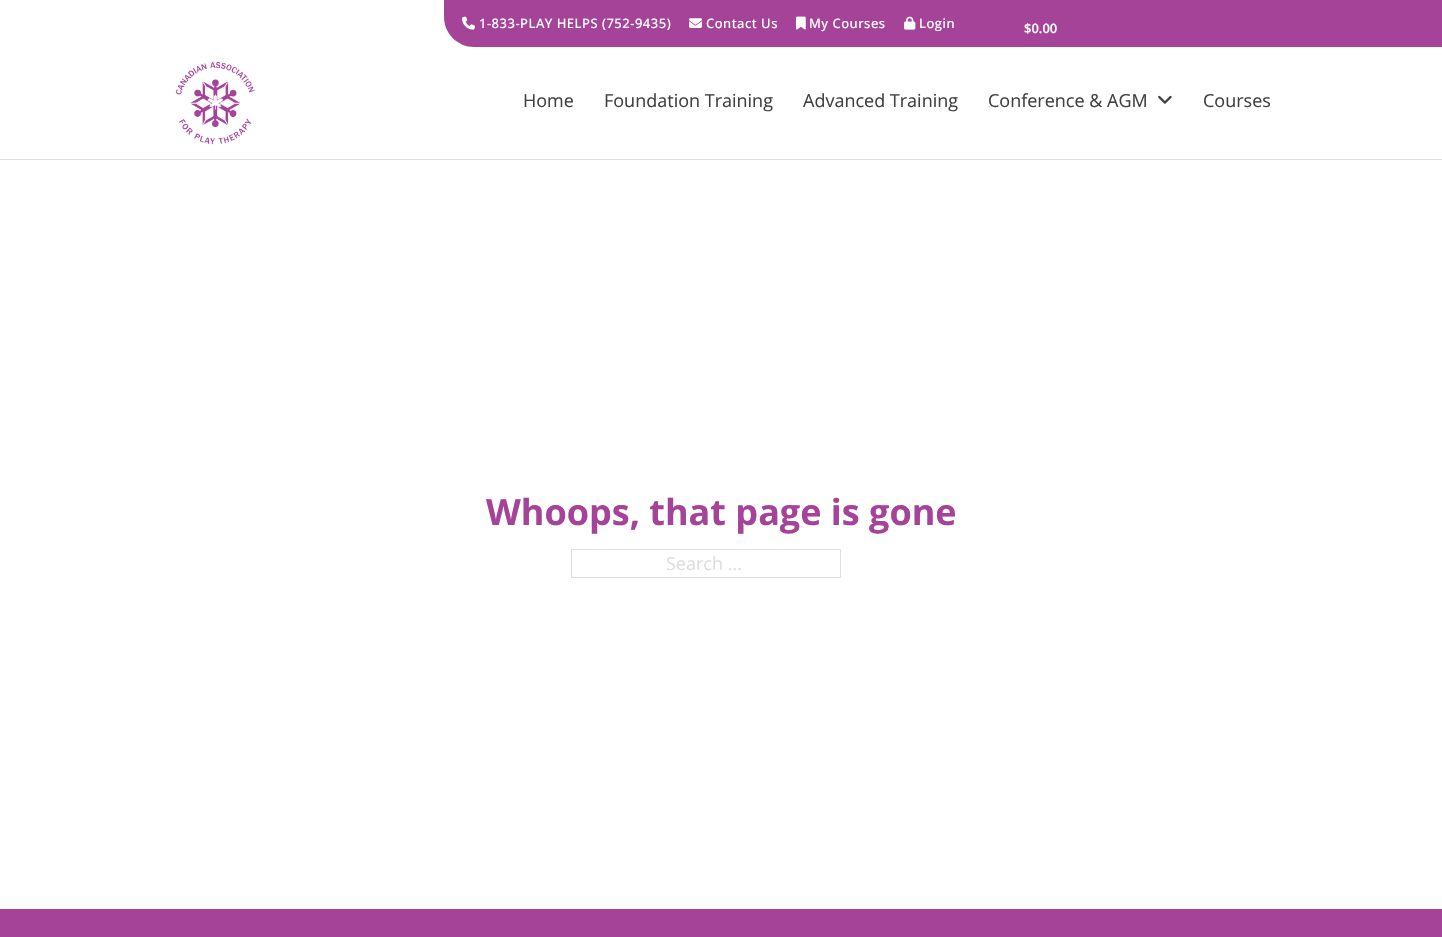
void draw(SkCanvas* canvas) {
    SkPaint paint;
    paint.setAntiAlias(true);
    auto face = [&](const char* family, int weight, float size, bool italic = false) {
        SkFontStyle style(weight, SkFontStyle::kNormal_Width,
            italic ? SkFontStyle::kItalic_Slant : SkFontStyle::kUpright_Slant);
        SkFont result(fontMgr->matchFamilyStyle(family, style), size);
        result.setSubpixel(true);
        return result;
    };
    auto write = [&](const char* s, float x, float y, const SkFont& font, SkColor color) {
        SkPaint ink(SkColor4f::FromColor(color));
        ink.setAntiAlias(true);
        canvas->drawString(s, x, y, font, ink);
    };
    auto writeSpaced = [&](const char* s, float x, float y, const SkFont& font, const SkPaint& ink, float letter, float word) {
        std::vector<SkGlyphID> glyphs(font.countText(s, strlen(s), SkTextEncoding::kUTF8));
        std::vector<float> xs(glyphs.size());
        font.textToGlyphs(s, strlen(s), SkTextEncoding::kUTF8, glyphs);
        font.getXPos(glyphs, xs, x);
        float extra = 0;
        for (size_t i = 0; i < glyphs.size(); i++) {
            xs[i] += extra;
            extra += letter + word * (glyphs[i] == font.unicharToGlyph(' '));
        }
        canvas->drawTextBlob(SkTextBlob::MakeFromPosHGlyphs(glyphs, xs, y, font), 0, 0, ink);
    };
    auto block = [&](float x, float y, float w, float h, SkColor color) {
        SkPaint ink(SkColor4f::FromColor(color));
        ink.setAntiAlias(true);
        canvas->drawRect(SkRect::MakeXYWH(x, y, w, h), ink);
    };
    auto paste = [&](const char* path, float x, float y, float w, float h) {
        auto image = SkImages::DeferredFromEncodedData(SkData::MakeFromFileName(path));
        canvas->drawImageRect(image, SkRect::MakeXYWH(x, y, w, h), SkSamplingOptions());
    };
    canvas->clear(SK_ColorWHITE);
    paint.setColor(SkColorSetRGB(165, 67, 153));
    canvas->drawPath(SkPathBuilder().moveTo(444, 0).lineTo(1442, 0).lineTo(1442, 47).lineTo(474, 47).cubicTo(457.5f, 47, 444, 33.5f, 444, 17).close().detach(), paint);
    paste("pic1.png", 462, 16, 13, 14);
    auto kFont1 = face("Open Sans", 500, 13);
    paint.setColor(SK_ColorWHITE);
    writeSpaced("1-833-PLAY HELPS (752-9435)", 479, 28, kFont1, paint, 0.5f, 0);
    paste("pic2.png", 689, 18, 13, 10);
    writeSpaced("Contact Us", 706, 28, kFont1, paint, 0.5f, 0);
    paste("pic3.png", 796, 16, 10, 14);
    writeSpaced("My Courses", 809, 28, kFont1, paint, 0.5f, 0);
    paste("pic4.png", 904, 16, 12, 14);
    writeSpaced("Login", 919, 28, kFont1, paint, 0.5f, 0);
    auto kFont2 = face("Open Sans", 600, 13);
    write("$0.00", 1024, 33, kFont2, SK_ColorWHITE);
    block(0, 159, 1442, 1, SkColorSetRGB(221, 221, 221));
    paste("pic5.png", 175, 61, 80, 84);
    auto kFont3 = face("Open Sans", 400, 18);
    write("Home", 523, 107, kFont3, SkColorSetRGB(64, 64, 64));
    write("Foundation Training", 604, 107, kFont3, SkColorSetRGB(64, 64, 64));
    write("Advanced Training", 803, 107, kFont3, SkColorSetRGB(64, 64, 64));
    write("Conference & AGM", 988, 107, kFont3, SkColorSetRGB(64, 64, 64));
    paste("pic6.png", 1158, 95, 14, 9);
    write("Courses", 1203, 107, kFont3, SkColorSetRGB(64, 64, 64));
    auto kFont4 = face("Open Sans", 700, 36);
    write("Whoops, that page is gone", 486, 525, kFont4, SkColorSetRGB(165, 67, 153));
    paint.setStyle(SkPaint::kStroke_Style);
    paint.setStrokeWidth(1);
    paint.setColor(SkColorSetRGB(221, 222, 223));
    canvas->drawRect(SkRect::MakeXYWH(571.5f, 549.5f, 269, 28), paint);
    write("Search ...", 666, 570, kFont3, SkColorSetRGB(221, 222, 223));
    block(0, 909, 1442, 28, SkColorSetRGB(165, 67, 153));
}
